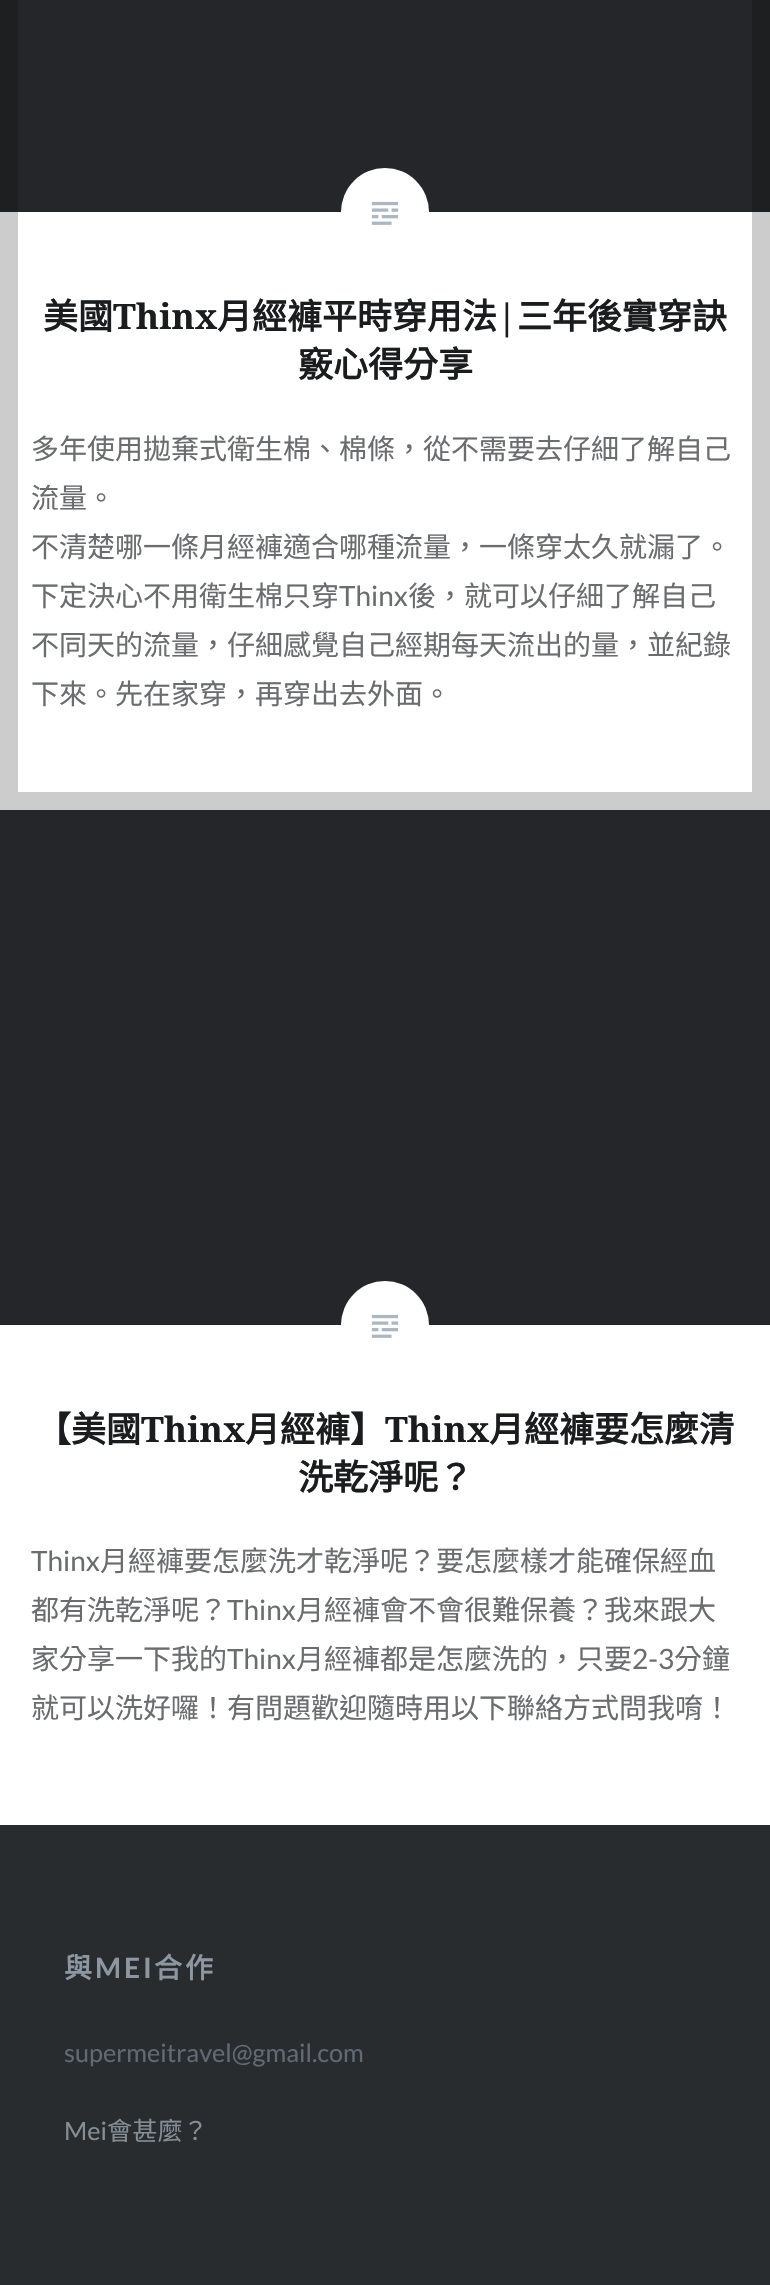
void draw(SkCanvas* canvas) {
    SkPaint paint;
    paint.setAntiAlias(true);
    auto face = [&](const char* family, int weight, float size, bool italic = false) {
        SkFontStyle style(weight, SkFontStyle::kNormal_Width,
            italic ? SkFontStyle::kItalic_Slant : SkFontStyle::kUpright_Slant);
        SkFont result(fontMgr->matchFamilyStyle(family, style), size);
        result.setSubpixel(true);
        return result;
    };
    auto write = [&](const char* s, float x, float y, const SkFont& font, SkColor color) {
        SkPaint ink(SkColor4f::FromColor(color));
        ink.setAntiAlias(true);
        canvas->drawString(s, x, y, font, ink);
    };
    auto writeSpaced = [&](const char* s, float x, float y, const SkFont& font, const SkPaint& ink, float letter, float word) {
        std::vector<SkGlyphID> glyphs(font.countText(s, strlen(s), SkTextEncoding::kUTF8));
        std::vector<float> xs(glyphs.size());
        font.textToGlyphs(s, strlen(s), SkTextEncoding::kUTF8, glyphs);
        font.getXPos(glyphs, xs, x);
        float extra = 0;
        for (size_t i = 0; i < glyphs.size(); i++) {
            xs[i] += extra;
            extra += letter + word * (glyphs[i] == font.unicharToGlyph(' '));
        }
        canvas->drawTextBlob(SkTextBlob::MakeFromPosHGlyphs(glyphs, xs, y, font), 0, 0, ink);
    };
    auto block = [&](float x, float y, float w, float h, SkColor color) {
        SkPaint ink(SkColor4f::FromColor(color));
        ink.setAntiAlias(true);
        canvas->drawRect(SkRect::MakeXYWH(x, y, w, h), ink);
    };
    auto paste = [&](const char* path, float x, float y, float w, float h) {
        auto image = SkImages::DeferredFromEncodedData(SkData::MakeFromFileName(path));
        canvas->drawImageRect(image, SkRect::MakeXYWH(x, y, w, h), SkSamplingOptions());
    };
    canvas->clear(SK_ColorWHITE);
    block(0, 0, 770, 212, SkColorSetRGB(36, 38, 41));
    paint.setColor(SK_ColorWHITE);
    canvas->drawCircle(385, 212, 44, paint);
    paint.setStyle(SkPaint::kStroke_Style);
    paint.setStrokeWidth(18);
    paint.setColor(SkColorSetARGB(51, 0, 0, 0));
    canvas->drawRect(SkRect::MakeXYWH(9, -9, 752, 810), paint);
    paste("pic1.png", 371, 201, 28, 24);
    auto kFont1 = face("Noto Sans CJK TC", 700, 35);
    write("美國", 43, 329, kFont1, SkColorSetRGB(26, 28, 30));
    auto kFont2 = face("Noto Serif", 700, 35);
    write("Thinx", 113, 329, kFont2, SkColorSetRGB(26, 28, 30));
    write("月經褲平時穿用法", 217, 329, kFont1, SkColorSetRGB(26, 28, 30));
    write("|", 497, 329, kFont2, SkColorSetRGB(26, 28, 30));
    write("三年後實穿訣", 517, 329, kFont1, SkColorSetRGB(26, 28, 30));
    write("竅心得分享", 298, 377, kFont1, SkColorSetRGB(26, 28, 30));
    auto kFont3 = face("Noto Sans CJK TC", 400, 28);
    write("多年使用拋棄式衛生棉、棉條，從不需要去仔細了解自己", 31, 459, kFont3, SkColorSetRGB(106, 108, 110));
    write("流量。", 31, 508, kFont3, SkColorSetRGB(106, 108, 110));
    write("不清楚哪一條月經褲適合哪種流量，一條穿太久就漏了。", 31, 557, kFont3, SkColorSetRGB(106, 108, 110));
    write("下定決心不用衛生棉只穿", 31, 606, kFont3, SkColorSetRGB(106, 108, 110));
    auto kFont4 = face("Lato", 400, 28);
    write("Thinx", 339, 606, kFont4, SkColorSetRGB(106, 108, 110));
    write("後，就可以仔細了解自己", 408, 606, kFont3, SkColorSetRGB(106, 108, 110));
    write("不同天的流量，仔細感覺自己經期每天流出的量，並紀錄", 31, 655, kFont3, SkColorSetRGB(106, 108, 110));
    write("下來。先在家穿，再穿出去外面。", 31, 704, kFont3, SkColorSetRGB(106, 108, 110));
    block(0, 810, 770, 515, SkColorSetRGB(36, 38, 41));
    paint.setStyle(SkPaint::kFill_Style);
    paint.setColor(SK_ColorWHITE);
    canvas->drawCircle(385, 1325, 44, paint);
    paste("pic1.png", 371, 1314, 28, 24);
    write("【美國", 36, 1442, kFont1, SkColorSetRGB(26, 28, 30));
    write("Thinx", 141, 1442, kFont2, SkColorSetRGB(26, 28, 30));
    write("月經褲】", 245, 1442, kFont1, SkColorSetRGB(26, 28, 30));
    write("Thinx", 385, 1442, kFont2, SkColorSetRGB(26, 28, 30));
    write("月經褲要怎麼清", 489, 1442, kFont1, SkColorSetRGB(26, 28, 30));
    write("洗乾淨呢？", 298, 1490, kFont1, SkColorSetRGB(26, 28, 30));
    write("Thinx", 31, 1571, kFont4, SkColorSetRGB(106, 108, 110));
    write("月經褲要怎麼洗才乾淨呢？要怎麼樣才能確保經血", 100, 1571, kFont3, SkColorSetRGB(106, 108, 110));
    write("都有洗乾淨呢？", 31, 1620, kFont3, SkColorSetRGB(106, 108, 110));
    write("Thinx", 227, 1620, kFont4, SkColorSetRGB(106, 108, 110));
    write("月經褲會不會很難保養？我來跟大", 296, 1620, kFont3, SkColorSetRGB(106, 108, 110));
    write("家分享一下我的", 31, 1669, kFont3, SkColorSetRGB(106, 108, 110));
    write("Thinx", 227, 1669, kFont4, SkColorSetRGB(106, 108, 110));
    write("月經褲都是怎麼洗的，只要", 296, 1669, kFont3, SkColorSetRGB(106, 108, 110));
    write("2-3", 632, 1669, kFont4, SkColorSetRGB(106, 108, 110));
    write("分鐘", 674, 1669, kFont3, SkColorSetRGB(106, 108, 110));
    write("就可以洗好囉！有問題歡迎隨時用以下聯絡方式問我唷！", 31, 1718, kFont3, SkColorSetRGB(106, 108, 110));
    block(0, 1825, 770, 460, SkColorSetRGB(41, 44, 47));
    auto kFont5 = face("Noto Sans CJK TC", 700, 28);
    paint.setColor(SkColorSetRGB(140, 151, 162));
    writeSpaced("與", 64, 1978, kFont5, paint, 3, 0);
    auto kFont6 = face("Lato", 700, 28);
    writeSpaced("MEI", 95, 1978, kFont6, paint, 3, 0);
    writeSpaced("合作", 154, 1978, kFont5, paint, 3, 0);
    auto kFont7 = face("Lato", 400, 25.25f);
    write("supermeitravel@gmail.com", 64, 2062, kFont7, SkColorSetRGB(97, 106, 116));
    write("Mei", 64, 2140, kFont7, SkColorSetRGB(133, 141, 149));
    auto kFont8 = face("Noto Sans CJK TC", 400, 25.25f);
    write("會甚麼？", 107, 2140, kFont8, SkColorSetRGB(133, 141, 149));
}
